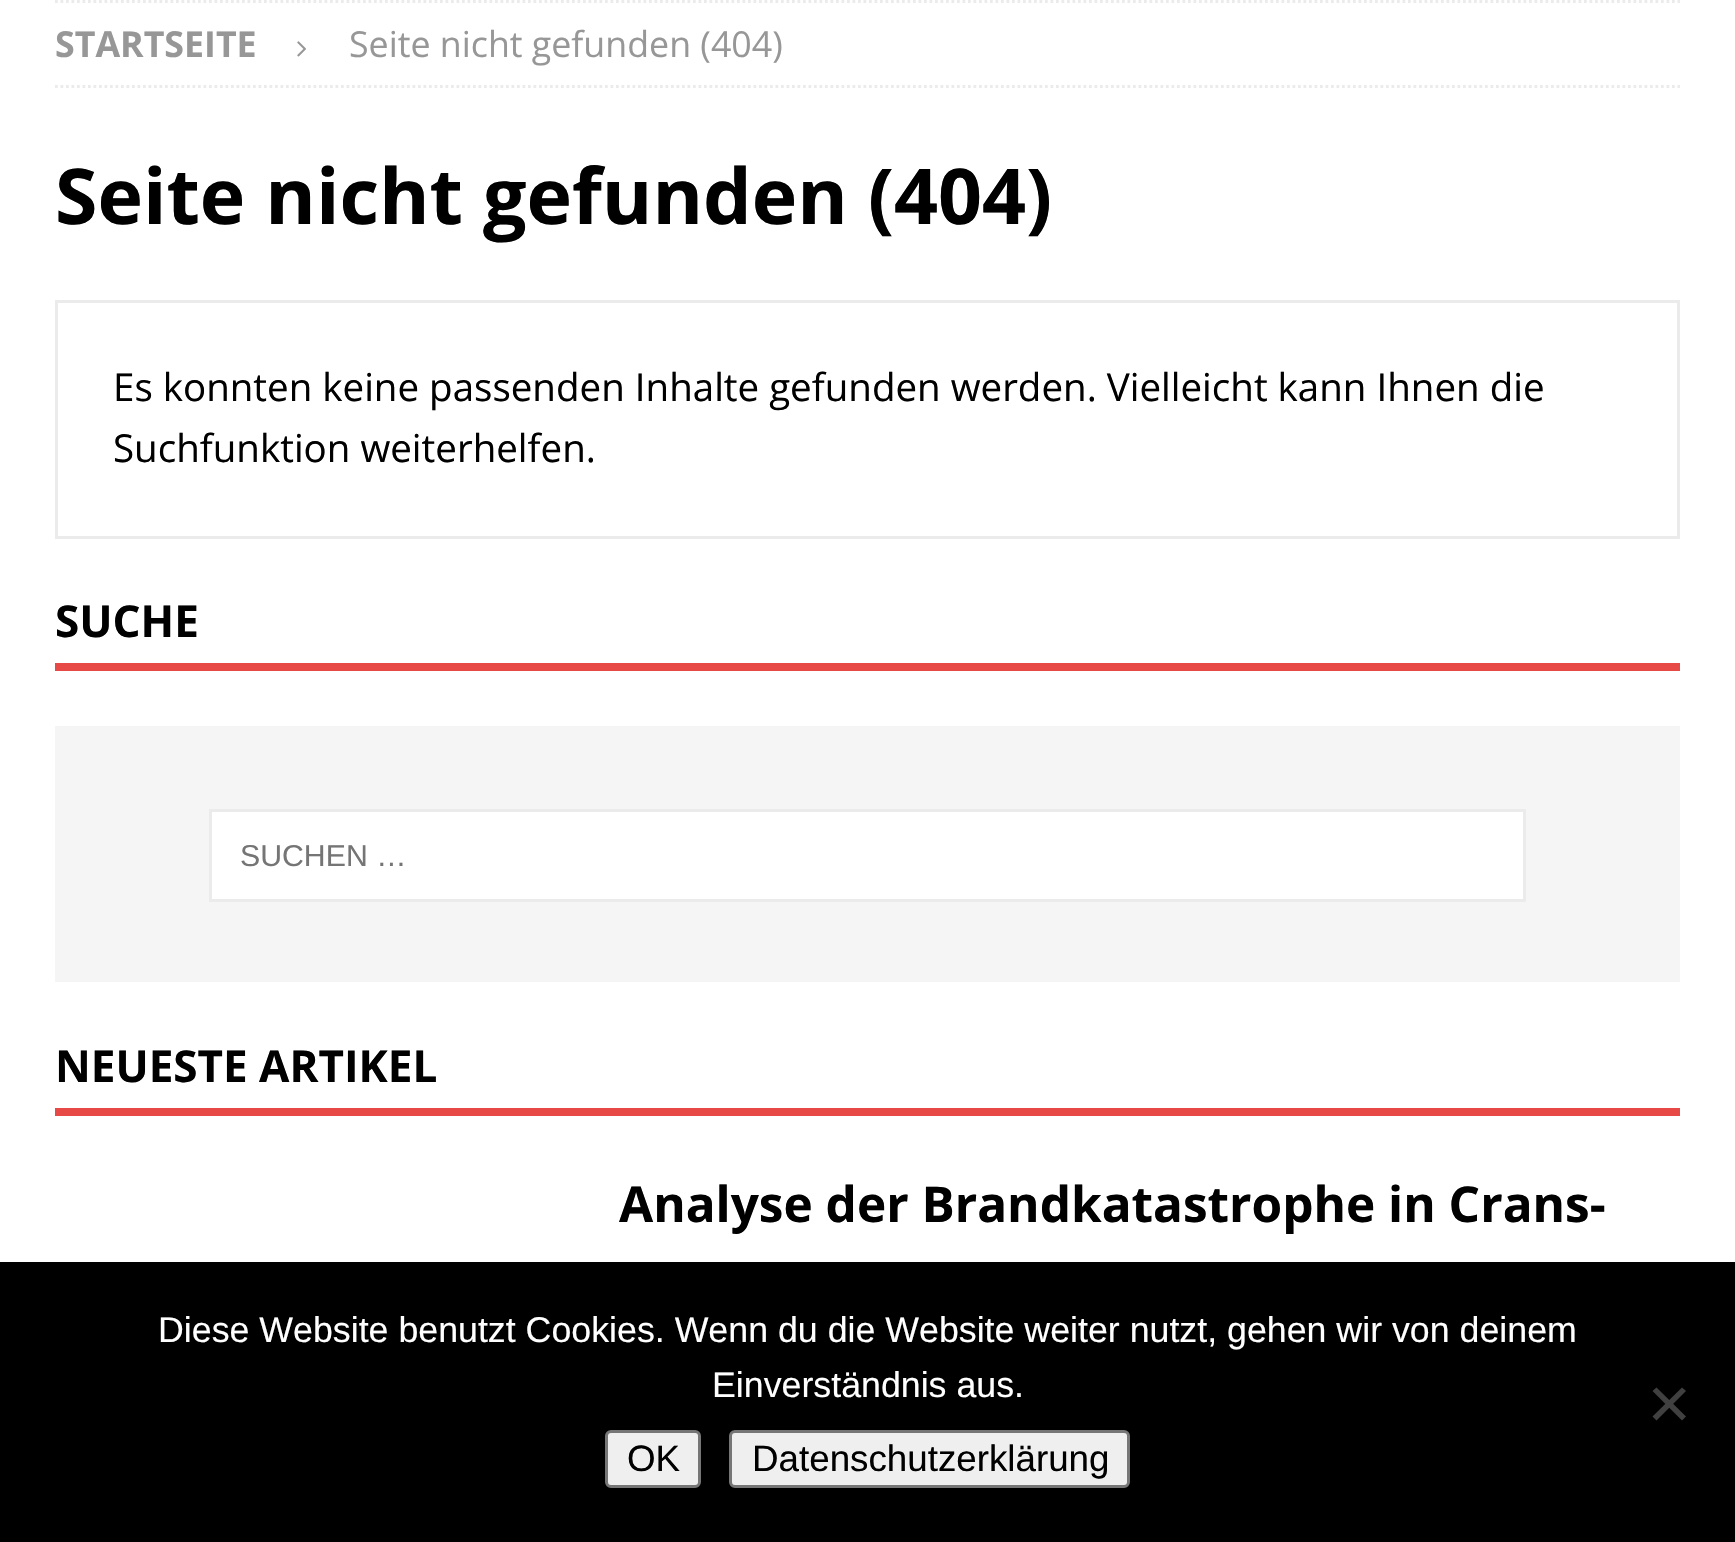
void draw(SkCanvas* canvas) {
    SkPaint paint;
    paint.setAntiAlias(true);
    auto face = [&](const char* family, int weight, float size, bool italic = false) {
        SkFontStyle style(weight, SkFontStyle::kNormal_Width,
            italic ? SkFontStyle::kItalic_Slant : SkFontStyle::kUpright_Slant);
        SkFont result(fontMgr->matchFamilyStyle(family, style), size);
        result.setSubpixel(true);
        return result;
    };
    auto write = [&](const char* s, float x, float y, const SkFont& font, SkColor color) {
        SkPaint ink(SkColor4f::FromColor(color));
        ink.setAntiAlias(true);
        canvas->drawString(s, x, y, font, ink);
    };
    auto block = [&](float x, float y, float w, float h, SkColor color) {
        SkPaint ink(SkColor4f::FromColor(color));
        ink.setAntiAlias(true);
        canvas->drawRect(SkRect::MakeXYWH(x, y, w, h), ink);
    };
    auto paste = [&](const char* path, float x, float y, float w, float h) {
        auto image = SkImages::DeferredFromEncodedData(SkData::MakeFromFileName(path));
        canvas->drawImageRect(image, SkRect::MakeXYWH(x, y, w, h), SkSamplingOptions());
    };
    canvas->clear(SK_ColorWHITE);
    paint.setStyle(SkPaint::kStroke_Style);
    paint.setStrokeWidth(2.8f);
    paint.setColor(SkColorSetRGB(235, 235, 235));
    paint.setPathEffect(SkDashPathEffect::Make({{2.75f, 2.75f}}, 0));
    canvas->drawPath(SkPathBuilder().moveTo(55, 1.5f).lineTo(1680, 1.5f).detach(), paint);
    paint.setPathEffect(nullptr);
    paint.setPathEffect(SkDashPathEffect::Make({{2.75f, 2.75f}}, 0));
    canvas->drawPath(SkPathBuilder().moveTo(55, 86.5f).lineTo(1680, 86.5f).detach(), paint);
    paint.setPathEffect(nullptr);
    auto kFont1 = face("Open Sans", 700, 35.75f);
    write("STARTSEITE", 55, 57, kFont1, SkColorSetRGB(151, 151, 151));
    paste("pic1.png", 297, 41, 9, 16);
    auto kFont2 = face("Open Sans", 400, 35.75f);
    write("Seite nicht gefunden (404)", 349, 57, kFont2, SkColorSetRGB(151, 151, 151));
    auto kFont3 = face("Open Sans", 700, 77);
    write("Seite nicht gefunden (404)", 55, 224, kFont3, SK_ColorBLACK);
    paint.setStrokeWidth(3);
    canvas->drawRect(SkRect::MakeXYWH(56.5f, 301.5f, 1622, 236), paint);
    auto kFont4 = face("Open Sans", 400, 38.5f);
    write("Es konnten keine passenden Inhalte gefunden werden. Vielleicht kann Ihnen die", 113, 401, kFont4, SK_ColorBLACK);
    write("Suchfunktion weiterhelfen.", 113, 462, kFont4, SK_ColorBLACK);
    block(55, 663, 1625, 8, SkColorSetRGB(230, 73, 70));
    auto kFont5 = face("Open Sans", 700, 44);
    write("SUCHE", 55, 637, kFont5, SK_ColorBLACK);
    block(55, 726, 1625, 256, SkColorSetRGB(245, 245, 245));
    paint.setStyle(SkPaint::kFill_Style);
    paint.setColor(SK_ColorWHITE);
    canvas->drawRect(SkRect::MakeXYWH(210.5f, 810.5f, 1314, 90), paint);
    paint.setStyle(SkPaint::kStroke_Style);
    paint.setColor(SkColorSetRGB(235, 235, 235));
    canvas->drawRect(SkRect::MakeXYWH(210.5f, 810.5f, 1314, 90), paint);
    auto kFont6 = face("Liberation Sans", 400, 30.25f);
    write("SUCHEN …", 240, 866, kFont6, SkColorSetRGB(117, 117, 117));
    block(55, 1108, 1625, 8, SkColorSetRGB(230, 73, 70));
    write("NEUESTE ARTIKEL", 55, 1082, kFont5, SK_ColorBLACK);
    auto kFont7 = face("Open Sans", 700, 49.5f);
    write("Analyse der Brandkatastrophe in Crans-", 619, 1222, kFont7, SK_ColorBLACK);
    block(0, 1262, 1735, 280, SK_ColorBLACK);
    auto kFont8 = face("Liberation Sans", 400, 35.75f);
    write("Diese Website benutzt Cookies. Wenn du die Website weiter nutzt, gehen wir von deinem", 158, 1342, kFont8, SK_ColorWHITE);
    write("Einverständnis aus.", 712, 1397, kFont8, SK_ColorWHITE);
    paint.setStyle(SkPaint::kFill_Style);
    paint.setColor(SkColorSetRGB(64, 64, 64));
    canvas->drawPath(SkPathBuilder().moveTo(1682, 1387.5f).lineTo(1686, 1391).lineTo(1656.5f, 1420.5f).lineTo(1652.5f, 1416.5f).close().detach(), paint);
    canvas->drawPath(SkPathBuilder().moveTo(1652.5f, 1391).lineTo(1656.5f, 1387.5f).lineTo(1686, 1416.5f).lineTo(1682, 1420.5f).close().detach(), paint);
    paint.setColor(SkColorSetRGB(239, 239, 239));
    canvas->drawRoundRect(SkRect::MakeXYWH(606.5f, 1431.5f, 93, 55), 4.5f, 4.5f, paint);
    paint.setStyle(SkPaint::kStroke_Style);
    paint.setColor(SkColorSetRGB(118, 118, 118));
    canvas->drawRoundRect(SkRect::MakeXYWH(606.5f, 1431.5f, 93, 55), 4.5f, 4.5f, paint);
    auto kFont9 = face("Liberation Sans", 400, 36.75f);
    write("OK", 627, 1471, kFont9, SK_ColorBLACK);
    paint.setStyle(SkPaint::kFill_Style);
    paint.setColor(SkColorSetRGB(239, 239, 239));
    canvas->drawRoundRect(SkRect::MakeXYWH(730.5f, 1431.5f, 398, 55), 4.5f, 4.5f, paint);
    paint.setStyle(SkPaint::kStroke_Style);
    paint.setColor(SkColorSetRGB(118, 118, 118));
    canvas->drawRoundRect(SkRect::MakeXYWH(730.5f, 1431.5f, 398, 55), 4.5f, 4.5f, paint);
    write("Datenschutzerklärung", 752, 1471, kFont9, SK_ColorBLACK);
}
